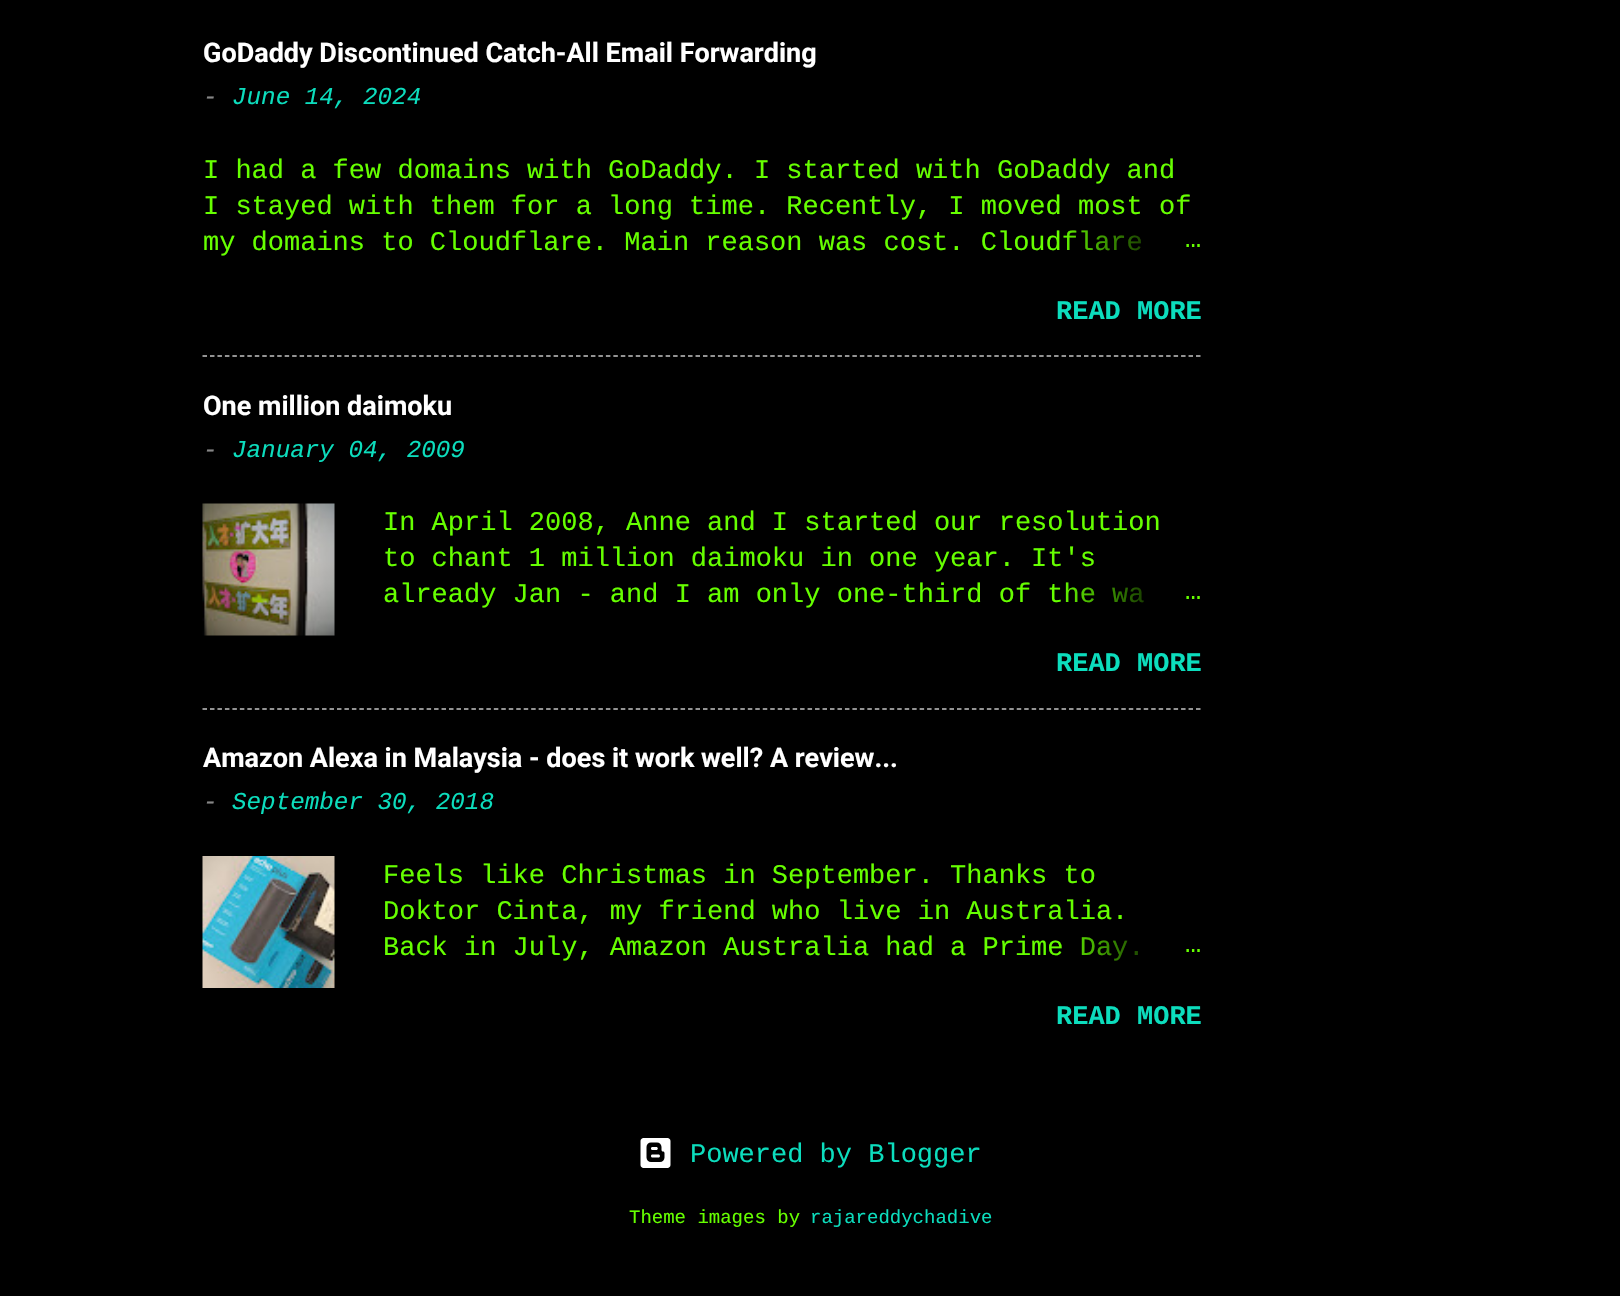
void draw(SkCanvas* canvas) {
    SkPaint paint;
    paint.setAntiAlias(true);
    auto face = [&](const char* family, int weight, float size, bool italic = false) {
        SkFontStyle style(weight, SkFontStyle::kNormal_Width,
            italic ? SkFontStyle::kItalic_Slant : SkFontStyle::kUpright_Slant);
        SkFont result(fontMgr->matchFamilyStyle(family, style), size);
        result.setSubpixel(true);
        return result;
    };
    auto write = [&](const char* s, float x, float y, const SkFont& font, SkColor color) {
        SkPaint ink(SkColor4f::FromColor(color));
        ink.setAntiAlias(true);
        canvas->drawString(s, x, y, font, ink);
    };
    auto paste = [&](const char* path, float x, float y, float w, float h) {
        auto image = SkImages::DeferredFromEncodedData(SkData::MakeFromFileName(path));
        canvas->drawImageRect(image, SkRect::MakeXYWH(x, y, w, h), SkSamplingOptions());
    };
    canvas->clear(SK_ColorBLACK);
    auto kFont1 = face("Roboto", 700, 27);
    write("GoDaddy Discontinued Catch-All Email Forwarding", 203, 62, kFont1, SK_ColorWHITE);
    auto kFont2 = face("Liberation Mono", 400, 24.25f, true);
    write("-", 203, 104, kFont2, SkColorSetRGB(134, 134, 134));
    write("June 14, 2024", 232, 104, kFont2, SkColorSetRGB(12, 221, 189));
    auto kFont3 = face("Liberation Mono", 400, 27);
    write("I had a few domains with GoDaddy. I started with GoDaddy and", 203, 178, kFont3, SkColorSetRGB(102, 255, 0));
    write("I stayed with them for a long time. Recently, I moved most of", 203, 214, kFont3, SkColorSetRGB(102, 255, 0));
    write("my domains to Cloudflare. Main reason was cost. Cloudflare", 203, 250, kFont3, SkColorSetRGB(102, 255, 0));
    {
        const SkColor colors[] = {SK_ColorBLACK, SK_ColorBLACK, SkColorSetARGB(0, 0, 0, 0)};
        const float stops[] = {0, 0.2f, 1};
        const SkPoint ends[] = {{1202, 242}, {1058, 242}};
        paint.setShader(SkGradientShader::MakeLinear(ends, colors, stops, 3, SkTileMode::kClamp));
        paint.setAlpha(255);
    }
    canvas->drawRect(SkRect::MakeXYWH(1063, 230, 78, 21), paint);
    write("…", 1185, 247, kFont3, SkColorSetRGB(102, 255, 0));
    auto kFont4 = face("Liberation Mono", 700, 27);
    write("READ MORE", 1056, 319, kFont4, SkColorSetRGB(12, 221, 189));
    paint.setStyle(SkPaint::kStroke_Style);
    paint.setStrokeWidth(1.5f);
    paint.setShader(nullptr);
    paint.setColor(SkColorSetRGB(195, 195, 195));
    paint.setPathEffect(SkDashPathEffect::Make({{4.5f, 2.97f}}, 0));
    canvas->drawPath(SkPathBuilder().moveTo(202.5f, 356).lineTo(1201.5f, 356).detach(), paint);
    paint.setPathEffect(nullptr);
    write("One million daimoku", 203, 415, kFont1, SK_ColorWHITE);
    write("-", 203, 457, kFont2, SkColorSetRGB(134, 134, 134));
    write("January 04, 2009", 232, 457, kFont2, SkColorSetRGB(12, 221, 189));
    paste("pic1.png", 202, 503, 133, 133);
    write("In April 2008, Anne and I started our resolution", 383, 530, kFont3, SkColorSetRGB(102, 255, 0));
    write("to chant 1 million daimoku in one year. It's", 383, 566, kFont3, SkColorSetRGB(102, 255, 0));
    write("already Jan - and I am only one-third of the wa", 383, 602, kFont3, SkColorSetRGB(102, 255, 0));
    paint.setStyle(SkPaint::kFill_Style);
    {
        const SkColor colors[] = {SK_ColorBLACK, SK_ColorBLACK, SkColorSetARGB(0, 0, 0, 0)};
        const float stops[] = {0, 0.2f, 1};
        const SkPoint ends[] = {{1202, 594}, {1058, 594}};
        paint.setShader(SkGradientShader::MakeLinear(ends, colors, stops, 3, SkTileMode::kClamp));
        paint.setAlpha(255);
    }
    canvas->drawRect(SkRect::MakeXYWH(1065, 582, 79, 21), paint);
    write("…", 1185, 599, kFont3, SkColorSetRGB(102, 255, 0));
    write("READ MORE", 1056, 671, kFont4, SkColorSetRGB(12, 221, 189));
    paint.setStyle(SkPaint::kStroke_Style);
    paint.setShader(nullptr);
    paint.setColor(SkColorSetRGB(195, 195, 195));
    paint.setPathEffect(SkDashPathEffect::Make({{4.5f, 2.97f}}, 0));
    canvas->drawPath(SkPathBuilder().moveTo(202.5f, 709).lineTo(1201.5f, 709).detach(), paint);
    paint.setPathEffect(nullptr);
    write("Amazon Alexa in Malaysia - does it work well? A review...", 203, 767, kFont1, SK_ColorWHITE);
    write("-", 203, 809, kFont2, SkColorSetRGB(134, 134, 134));
    write("September 30, 2018", 232, 809, kFont2, SkColorSetRGB(12, 221, 189));
    paste("pic2.png", 202, 856, 133, 132);
    write("Feels like Christmas in September. Thanks to", 383, 883, kFont3, SkColorSetRGB(102, 255, 0));
    write("Doktor Cinta, my friend who live in Australia.", 383, 919, kFont3, SkColorSetRGB(102, 255, 0));
    write("Back in July, Amazon Australia had a Prime Day.", 383, 955, kFont3, SkColorSetRGB(102, 255, 0));
    paint.setStyle(SkPaint::kFill_Style);
    {
        const SkColor colors[] = {SK_ColorBLACK, SK_ColorBLACK, SkColorSetARGB(0, 0, 0, 0)};
        const float stops[] = {0, 0.2f, 1};
        const SkPoint ends[] = {{1202, 947}, {1058, 947}};
        paint.setShader(SkGradientShader::MakeLinear(ends, colors, stops, 3, SkTileMode::kClamp));
        paint.setAlpha(255);
    }
    canvas->drawRect(SkRect::MakeXYWH(1060, 937, 78, 24), paint);
    write("…", 1185, 952, kFont3, SkColorSetRGB(102, 255, 0));
    write("READ MORE", 1056, 1024, kFont4, SkColorSetRGB(12, 221, 189));
    paste("pic3.png", 640, 1138, 31, 30);
    write("Powered by Blogger", 690, 1162, kFont3, SkColorSetRGB(12, 221, 189));
    auto kFont5 = face("Liberation Mono", 400, 19);
    write("Theme images by", 629, 1223, kFont5, SkColorSetRGB(102, 255, 0));
    write("rajareddychadive", 810, 1223, kFont5, SkColorSetRGB(12, 221, 189));
}
